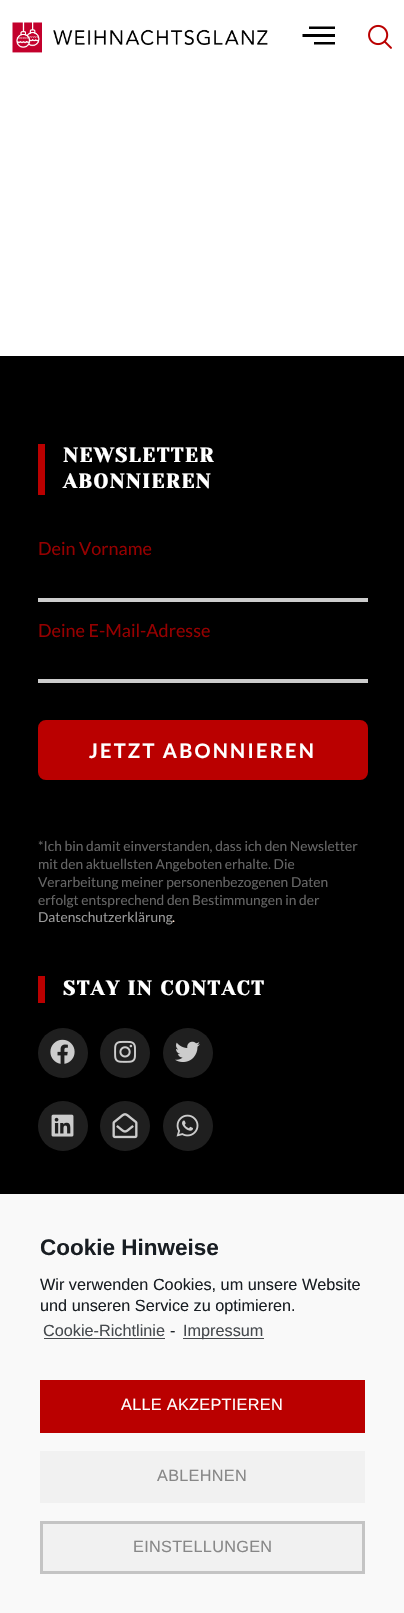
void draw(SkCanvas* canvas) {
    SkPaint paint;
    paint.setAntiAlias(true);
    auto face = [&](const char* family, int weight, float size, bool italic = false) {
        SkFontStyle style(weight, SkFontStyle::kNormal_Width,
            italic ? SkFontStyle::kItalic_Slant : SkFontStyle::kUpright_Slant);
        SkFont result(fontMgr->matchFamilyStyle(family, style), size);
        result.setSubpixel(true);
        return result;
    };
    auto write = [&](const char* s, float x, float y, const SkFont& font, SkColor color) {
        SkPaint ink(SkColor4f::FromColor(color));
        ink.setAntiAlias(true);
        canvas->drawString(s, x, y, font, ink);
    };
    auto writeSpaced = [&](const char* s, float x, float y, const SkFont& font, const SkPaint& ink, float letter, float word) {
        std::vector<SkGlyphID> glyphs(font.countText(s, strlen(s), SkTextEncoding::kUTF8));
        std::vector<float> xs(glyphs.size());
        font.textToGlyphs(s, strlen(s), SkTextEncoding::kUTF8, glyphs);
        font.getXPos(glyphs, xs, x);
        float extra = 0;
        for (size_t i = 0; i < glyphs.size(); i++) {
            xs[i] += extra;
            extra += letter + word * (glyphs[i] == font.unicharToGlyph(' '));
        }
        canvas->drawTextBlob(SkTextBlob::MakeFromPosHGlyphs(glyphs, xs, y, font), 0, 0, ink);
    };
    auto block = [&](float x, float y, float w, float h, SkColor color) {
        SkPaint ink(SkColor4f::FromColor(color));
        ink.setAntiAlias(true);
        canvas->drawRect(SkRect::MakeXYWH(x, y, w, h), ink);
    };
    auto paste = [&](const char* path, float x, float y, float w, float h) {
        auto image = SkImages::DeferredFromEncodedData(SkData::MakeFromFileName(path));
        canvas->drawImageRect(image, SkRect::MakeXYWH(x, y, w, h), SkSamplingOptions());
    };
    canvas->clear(SK_ColorWHITE);
    paste("pic1.png", 12, 22, 256, 31);
    paint.setColor(SK_ColorBLACK);
    canvas->drawPath(SkPathBuilder().moveTo(302.5f, 37).lineTo(335, 37).lineTo(335, 34).lineTo(302.5f, 34).close().moveTo(314, 44.5f).lineTo(335, 44.5f).lineTo(335, 42).lineTo(314, 42).close().moveTo(309, 26.5f).lineTo(309, 29).lineTo(335, 29).lineTo(335, 26.5f).close().detach(), paint);
    paste("pic2.png", 368, 24, 24, 25);
    block(0, 356, 404, 838, SK_ColorBLACK);
    block(38, 444, 7, 51, SkColorSetRGB(186, 0, 0));
    auto kFont1 = face("Yeseva One", 700, 20);
    paint.setColor(SK_ColorWHITE);
    writeSpaced("NEWSLETTER", 63, 462, kFont1, paint, 1.5f, 0);
    writeSpaced("ABONNIEREN", 63, 488, kFont1, paint, 1.5f, 0);
    auto kFont2 = face("Lato", 400, 18);
    write("Dein Vorname", 38, 555, kFont2, SkColorSetRGB(149, 0, 0));
    block(38, 598, 330, 4, SkColorSetRGB(204, 204, 204));
    write("Deine E-Mail-Adresse", 38, 637, kFont2, SkColorSetRGB(149, 0, 0));
    block(38, 679, 330, 4, SkColorSetRGB(204, 204, 204));
    paint.setColor(SkColorSetRGB(186, 0, 0));
    canvas->drawRoundRect(SkRect::MakeXYWH(40, 722, 326, 56), 6, 6, paint);
    paint.setStyle(SkPaint::kStroke_Style);
    paint.setStrokeWidth(4);
    canvas->drawRoundRect(SkRect::MakeXYWH(40, 722, 326, 56), 6, 6, paint);
    auto kFont3 = face("Lato", 700, 20);
    paint.setStyle(SkPaint::kFill_Style);
    paint.setColor(SK_ColorWHITE);
    writeSpaced("JETZT ABONNIEREN", 89, 758, kFont3, paint, 2.25f, 0);
    auto kFont4 = face("Lato", 400, 13.75f);
    write("*Ich bin damit einverstanden, dass ich den Newsletter", 38, 851, kFont4, SkColorSetRGB(102, 102, 102));
    write("mit den aktuellsten Angeboten erhalte. Die", 38, 869, kFont4, SkColorSetRGB(102, 102, 102));
    write("Verarbeitung meiner personenbezogenen Daten", 38, 887, kFont4, SkColorSetRGB(102, 102, 102));
    write("erfolgt entsprechend den Bestimmungen in der", 38, 905, kFont4, SkColorSetRGB(102, 102, 102));
    write("Datenschutzerklärung", 38, 922, kFont4, SkColorSetRGB(153, 153, 153));
    write(".", 172, 922, kFont4, SkColorSetRGB(255, 225, 203));
    block(38, 976, 7, 27, SkColorSetRGB(186, 0, 0));
    writeSpaced("STAY IN CONTACT", 63, 995, kFont1, paint, 1.5f, 0);
    paint.setColor(SkColorSetRGB(31, 31, 31));
    canvas->drawCircle(63, 1053, 25, paint);
    paste("pic3.png", 50, 1039, 25, 25);
    canvas->drawCircle(125, 1053, 25, paint);
    paste("pic4.png", 114, 1040, 22, 23);
    canvas->drawCircle(188, 1053, 25, paint);
    paste("pic5.png", 175, 1041, 25, 21);
    canvas->drawCircle(63, 1126, 25, paint);
    paste("pic6.png", 51, 1114, 23, 23);
    canvas->drawCircle(125, 1126, 25, paint);
    paste("pic7.png", 112, 1113, 26, 26);
    canvas->drawCircle(188, 1126, 25, paint);
    paste("pic8.png", 176, 1114, 23, 23);
    block(0, 1194, 404, 419, SkColorSetRGB(249, 249, 249));
    auto kFont5 = face("Liberation Sans", 700, 22.5f);
    write("Cookie Hinweise", 40, 1255, kFont5, SkColorSetRGB(25, 30, 35));
    auto kFont6 = face("Liberation Sans", 400, 16.25f);
    write("Wir verwenden Cookies, um unsere Website", 40, 1290, kFont6, SkColorSetRGB(25, 30, 35));
    write("und unseren Service zu optimieren.", 40, 1311, kFont6, SkColorSetRGB(25, 30, 35));
    write("Cookie-Richtlinie", 43, 1336, kFont6, SkColorSetRGB(70, 74, 78));
    block(44, 1338, 121, 1, SkColorSetRGB(70, 74, 78));
    write("-", 170, 1336, kFont6, SkColorSetRGB(25, 30, 35));
    block(183, 1338, 81, 1, SkColorSetRGB(70, 74, 78));
    write("Impressum", 183, 1336, kFont6, SkColorSetRGB(70, 74, 78));
    block(40, 1380, 325, 53, SkColorSetRGB(186, 0, 0));
    paint.setColor(SK_ColorWHITE);
    writeSpaced("ALLE AKZEPTIEREN", 121, 1410, kFont6, paint, 0.3f, 0);
    block(40, 1451, 325, 52, SkColorSetRGB(241, 241, 241));
    paint.setColor(SkColorSetRGB(135, 135, 135));
    writeSpaced("ABLEHNEN", 157, 1481, kFont6, paint, 0.3f, 0);
    paint.setColor(SkColorSetRGB(241, 241, 241));
    canvas->drawRect(SkRect::MakeXYWH(41.5f, 1522.5f, 322, 50), paint);
    paint.setStyle(SkPaint::kStroke_Style);
    paint.setStrokeWidth(3);
    paint.setColor(SkColorSetRGB(196, 196, 196));
    canvas->drawRect(SkRect::MakeXYWH(41.5f, 1522.5f, 322, 50), paint);
    paint.setStyle(SkPaint::kFill_Style);
    paint.setColor(SkColorSetRGB(135, 135, 135));
    writeSpaced("EINSTELLUNGEN", 133, 1552, kFont6, paint, 0.3f, 0);
}
